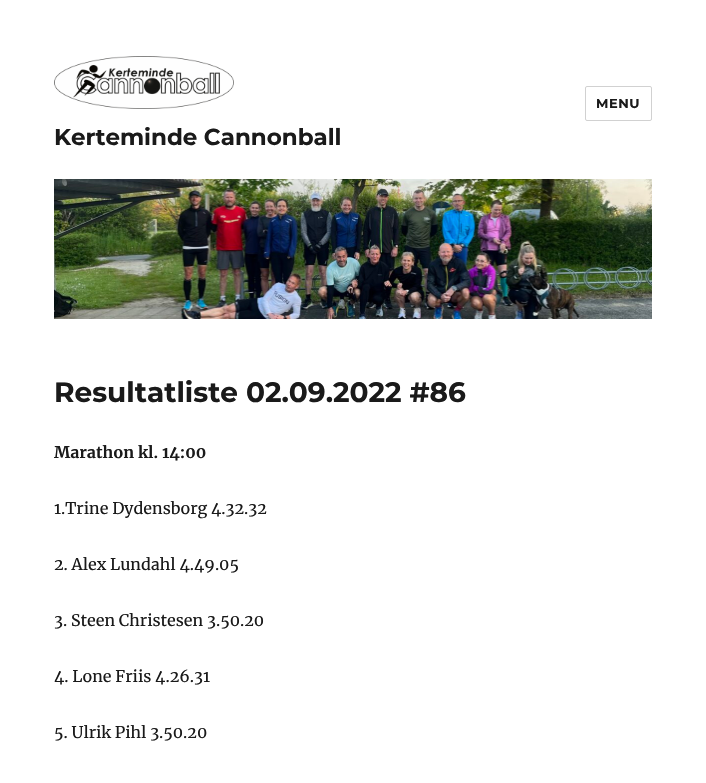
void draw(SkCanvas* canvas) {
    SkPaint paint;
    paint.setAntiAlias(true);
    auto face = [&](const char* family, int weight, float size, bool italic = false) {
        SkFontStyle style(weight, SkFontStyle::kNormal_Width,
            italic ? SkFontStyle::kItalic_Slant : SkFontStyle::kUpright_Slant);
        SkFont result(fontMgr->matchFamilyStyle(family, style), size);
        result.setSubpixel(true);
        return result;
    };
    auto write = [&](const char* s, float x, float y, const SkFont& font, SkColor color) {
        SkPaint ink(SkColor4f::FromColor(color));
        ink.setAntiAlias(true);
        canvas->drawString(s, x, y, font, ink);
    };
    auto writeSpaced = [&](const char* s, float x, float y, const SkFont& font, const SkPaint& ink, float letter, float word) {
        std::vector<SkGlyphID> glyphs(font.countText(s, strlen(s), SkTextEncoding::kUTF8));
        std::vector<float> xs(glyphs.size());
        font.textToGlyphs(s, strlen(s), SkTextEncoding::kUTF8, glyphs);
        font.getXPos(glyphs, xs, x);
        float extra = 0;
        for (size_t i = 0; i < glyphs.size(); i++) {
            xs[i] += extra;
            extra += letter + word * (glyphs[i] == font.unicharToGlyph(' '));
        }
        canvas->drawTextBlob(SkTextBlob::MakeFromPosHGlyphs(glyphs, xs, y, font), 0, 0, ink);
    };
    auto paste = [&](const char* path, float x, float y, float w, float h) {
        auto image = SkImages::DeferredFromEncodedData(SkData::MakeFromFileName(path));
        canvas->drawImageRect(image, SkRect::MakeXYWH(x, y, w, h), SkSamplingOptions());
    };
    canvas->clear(SK_ColorWHITE);
    paint.setStyle(SkPaint::kStroke_Style);
    paint.setStrokeWidth(1);
    paint.setColor(SkColorSetRGB(209, 209, 209));
    canvas->drawRoundRect(SkRect::MakeXYWH(585.5f, 86.5f, 66, 34), 1.5f, 1.5f, paint);
    auto kFont1 = face("Montserrat", 100, 13);
    paint.setStyle(SkPaint::kFill_Style);
    paint.setColor(SkColorSetRGB(26, 26, 26));
    writeSpaced("MENU", 596, 108, kFont1, paint, 0.5f, 0);
    paste("pic1.png", 54, 56, 180, 53);
    auto kFont2 = face("Montserrat", 100, 23);
    write("Kerteminde Cannonball", 54, 145, kFont2, SkColorSetRGB(26, 26, 26));
    paste("pic2.png", 54, 179, 598, 140);
    auto kFont3 = face("Montserrat", 100, 28);
    write("Resultatliste 02.09.2022 #86", 54, 402, kFont3, SkColorSetRGB(26, 26, 26));
    auto kFont4 = face("Merriweather", 700, 16);
    write("Marathon kl. 14:00", 54, 458, kFont4, SkColorSetRGB(26, 26, 26));
    auto kFont5 = face("Merriweather", 400, 16);
    write("1.Trine Dydensborg 4.32.32", 54, 514, kFont5, SkColorSetRGB(26, 26, 26));
    write("2. Alex Lundahl 4.49.05", 54, 570, kFont5, SkColorSetRGB(26, 26, 26));
    write("3. Steen Christesen 3.50.20", 54, 626, kFont5, SkColorSetRGB(26, 26, 26));
    write("4. Lone Friis 4.26.31", 54, 682, kFont5, SkColorSetRGB(26, 26, 26));
    write("5. Ulrik Pihl 3.50.20", 54, 738, kFont5, SkColorSetRGB(26, 26, 26));
}
